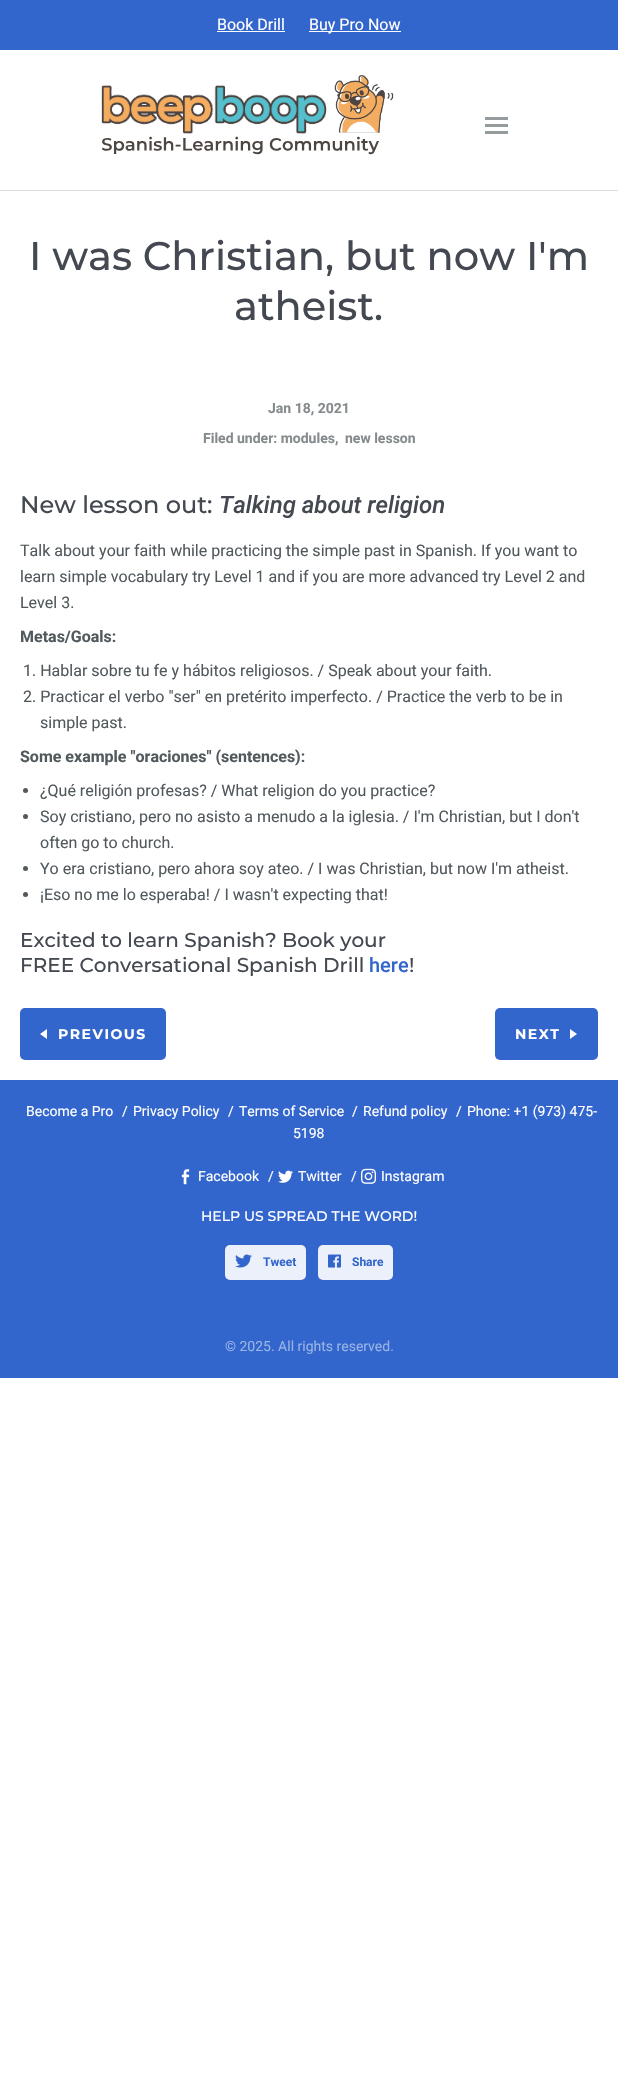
void draw(SkCanvas* canvas) {
    SkPaint paint;
    paint.setAntiAlias(true);
    auto face = [&](const char* family, int weight, float size, bool italic = false) {
        SkFontStyle style(weight, SkFontStyle::kNormal_Width,
            italic ? SkFontStyle::kItalic_Slant : SkFontStyle::kUpright_Slant);
        SkFont result(fontMgr->matchFamilyStyle(family, style), size);
        result.setSubpixel(true);
        return result;
    };
    auto write = [&](const char* s, float x, float y, const SkFont& font, SkColor color) {
        SkPaint ink(SkColor4f::FromColor(color));
        ink.setAntiAlias(true);
        canvas->drawString(s, x, y, font, ink);
    };
    auto writeSpaced = [&](const char* s, float x, float y, const SkFont& font, const SkPaint& ink, float letter, float word) {
        std::vector<SkGlyphID> glyphs(font.countText(s, strlen(s), SkTextEncoding::kUTF8));
        std::vector<float> xs(glyphs.size());
        font.textToGlyphs(s, strlen(s), SkTextEncoding::kUTF8, glyphs);
        font.getXPos(glyphs, xs, x);
        float extra = 0;
        for (size_t i = 0; i < glyphs.size(); i++) {
            xs[i] += extra;
            extra += letter + word * (glyphs[i] == font.unicharToGlyph(' '));
        }
        canvas->drawTextBlob(SkTextBlob::MakeFromPosHGlyphs(glyphs, xs, y, font), 0, 0, ink);
    };
    auto block = [&](float x, float y, float w, float h, SkColor color) {
        SkPaint ink(SkColor4f::FromColor(color));
        ink.setAntiAlias(true);
        canvas->drawRect(SkRect::MakeXYWH(x, y, w, h), ink);
    };
    auto card = [&](float x, float y, float w, float h, float radius, SkColor color) {
        SkPaint ink(SkColor4f::FromColor(color));
        ink.setAntiAlias(true);
        canvas->drawRoundRect(SkRect::MakeXYWH(x, y, w, h), radius, radius, ink);
    };
    auto paste = [&](const char* path, float x, float y, float w, float h) {
        auto image = SkImages::DeferredFromEncodedData(SkData::MakeFromFileName(path));
        canvas->drawImageRect(image, SkRect::MakeXYWH(x, y, w, h), SkSamplingOptions());
    };
    canvas->clear(SK_ColorWHITE);
    block(0, 190, 618, 1, SkColorSetRGB(215, 220, 222));
    block(0, 0, 618, 50, SkColorSetRGB(51, 102, 204));
    auto kFont1 = face("Roboto", 400, 16);
    write("Book Drill", 217, 30, kFont1, SK_ColorWHITE);
    block(217, 31, 68, 1, SK_ColorWHITE);
    block(309, 31, 92, 1, SK_ColorWHITE);
    write("Buy Pro Now", 309, 30, kFont1, SK_ColorWHITE);
    paste("pic1.png", 101, 75, 293, 80);
    block(485, 124, 23, 3, SkColorSetRGB(150, 155, 157));
    block(485, 117, 23, 3, SkColorSetRGB(150, 155, 157));
    block(485, 131, 23, 3, SkColorSetRGB(150, 155, 157));
    auto kFont2 = face("Montserrat", 500, 40);
    write("I was Christian, but now I'm", 29, 270, kFont2, SkColorSetRGB(68, 73, 81));
    write("atheist.", 234, 320, kFont2, SkColorSetRGB(68, 73, 81));
    auto kFont3 = face("Roboto", 700, 14);
    write("Jan 18, 2021", 268, 413, kFont3, SkColorSetRGB(133, 138, 141));
    write("Filed under: modules,", 203, 443, kFont3, SkColorSetRGB(133, 138, 141));
    write("new lesson", 345, 443, kFont3, SkColorSetRGB(133, 138, 141));
    auto kFont4 = face("Montserrat", 500, 24);
    write("New lesson out:", 20, 513, kFont4, SkColorSetRGB(68, 73, 81));
    auto kFont5 = face("Roboto", 500, 24, true);
    write("Talking about religion", 219, 513, kFont5, SkColorSetRGB(68, 73, 81));
    write("Talk about your faith while practicing the simple past in Spanish. If you want to", 20, 556, kFont1, SkColorSetRGB(81, 89, 93));
    write("learn simple vocabulary try Level 1 and if you are more advanced try Level 2 and", 20, 582, kFont1, SkColorSetRGB(81, 89, 93));
    write("Level 3.", 20, 608, kFont1, SkColorSetRGB(81, 89, 93));
    auto kFont6 = face("Roboto", 700, 16);
    write("Metas/Goals:", 20, 642, kFont6, SkColorSetRGB(81, 89, 93));
    write("1. Hablar sobre tu fe y hábitos religiosos. / Speak about your faith.", 23, 676, kFont1, SkColorSetRGB(81, 89, 93));
    write("2. Practicar el verbo \"ser\" en pretérito imperfecto. / Practice the verb to be in", 23, 702, kFont1, SkColorSetRGB(81, 89, 93));
    write("simple past.", 40, 728, kFont1, SkColorSetRGB(81, 89, 93));
    write("Some example \"oraciones\" (sentences):", 20, 762, kFont6, SkColorSetRGB(81, 89, 93));
    paint.setColor(SkColorSetRGB(81, 89, 93));
    canvas->drawCircle(25.5f, 790.5f, 2.5f, paint);
    write("¿Qué religión profesas? / What religion do you practice?", 40, 796, kFont1, SkColorSetRGB(81, 89, 93));
    canvas->drawCircle(25.5f, 816.5f, 2.5f, paint);
    write("Soy cristiano, pero no asisto a menudo a la iglesia. / I'm Christian, but I don't", 40, 822, kFont1, SkColorSetRGB(81, 89, 93));
    write("often go to church.", 40, 848, kFont1, SkColorSetRGB(81, 89, 93));
    canvas->drawCircle(25.5f, 868.5f, 2.5f, paint);
    write("Yo era cristiano, pero ahora soy ateo. / I was Christian, but now I'm atheist.", 40, 874, kFont1, SkColorSetRGB(81, 89, 93));
    canvas->drawCircle(25.5f, 894.5f, 2.5f, paint);
    write("¡Eso no me lo esperaba! / I wasn't expecting that!", 40, 900, kFont1, SkColorSetRGB(81, 89, 93));
    auto kFont7 = face("Montserrat", 500, 20);
    write("Excited to learn Spanish? Book your", 20, 947, kFont7, SkColorSetRGB(68, 73, 81));
    write("FREE Conversational Spanish Drill", 20, 972, kFont7, SkColorSetRGB(68, 73, 81));
    auto kFont8 = face("Roboto", 500, 20);
    write("here", 369, 972, kFont8, SkColorSetRGB(51, 102, 204));
    write("!", 409, 972, kFont7, SkColorSetRGB(68, 73, 81));
    card(20, 1008, 146, 52, 5, SkColorSetRGB(51, 102, 204));
    paint.setColor(SK_ColorWHITE);
    canvas->drawPath(SkPathBuilder().moveTo(47, 1039).lineTo(47, 1029).lineTo(40, 1034).close().detach(), paint);
    auto kFont9 = face("Montserrat", 700, 14);
    writeSpaced("PREVIOUS", 58, 1039, kFont9, paint, 1.5f, 0);
    card(495, 1008, 103, 52, 5, SkColorSetRGB(51, 102, 204));
    writeSpaced("NEXT", 515, 1039, kFont9, paint, 1.5f, 0);
    canvas->drawPath(SkPathBuilder().moveTo(570, 1029).lineTo(570, 1039).lineTo(577, 1034).close().detach(), paint);
    block(0, 1080, 618, 298, SkColorSetRGB(51, 102, 204));
    auto kFont10 = face("Roboto", 400, 14);
    write("Become a Pro", 26, 1116, kFont10, SK_ColorWHITE);
    write("/", 122, 1116, kFont10, SK_ColorWHITE);
    write("Privacy Policy", 133, 1116, kFont10, SK_ColorWHITE);
    write("/", 228, 1116, kFont10, SK_ColorWHITE);
    write("Terms of Service", 239, 1116, kFont10, SK_ColorWHITE);
    write("/", 352, 1116, kFont10, SK_ColorWHITE);
    write("Refund policy", 363, 1116, kFont10, SK_ColorWHITE);
    write("/", 456, 1116, kFont10, SK_ColorWHITE);
    write("Phone: +1 (973) 475-", 467, 1116, kFont10, SK_ColorWHITE);
    write("5198", 293, 1138, kFont10, SK_ColorWHITE);
    paste("pic2.png", 181, 1169, 9, 16);
    write("Facebook", 198, 1181, kFont10, SK_ColorWHITE);
    write("/", 268, 1181, kFont10, SK_ColorWHITE);
    paste("pic3.png", 278, 1170, 15, 13);
    write("Twitter", 298, 1181, kFont10, SK_ColorWHITE);
    write("/", 351, 1181, kFont10, SK_ColorWHITE);
    paste("pic4.png", 361, 1168, 15, 16);
    write("Instagram", 381, 1181, kFont10, SK_ColorWHITE);
    auto kFont11 = face("Montserrat", 500, 14);
    write("HELP US SPREAD THE WORD!", 201, 1221, kFont11, SK_ColorWHITE);
    card(225, 1245, 81, 35, 5, SkColorSetRGB(235, 240, 250));
    paste("pic5.png", 235, 1254, 17, 14);
    auto kFont12 = face("Roboto", 700, 12);
    write("Tweet", 263, 1266, kFont12, SkColorSetRGB(51, 102, 204));
    card(318, 1245, 75, 35, 5, SkColorSetRGB(235, 240, 250));
    paste("pic6.png", 328, 1254, 13, 14);
    write("Share", 352, 1266, kFont12, SkColorSetRGB(51, 102, 204));
    write("© 2025. All rights reserved.", 225, 1351, kFont10, SkColorSetRGB(153, 179, 230));
}
